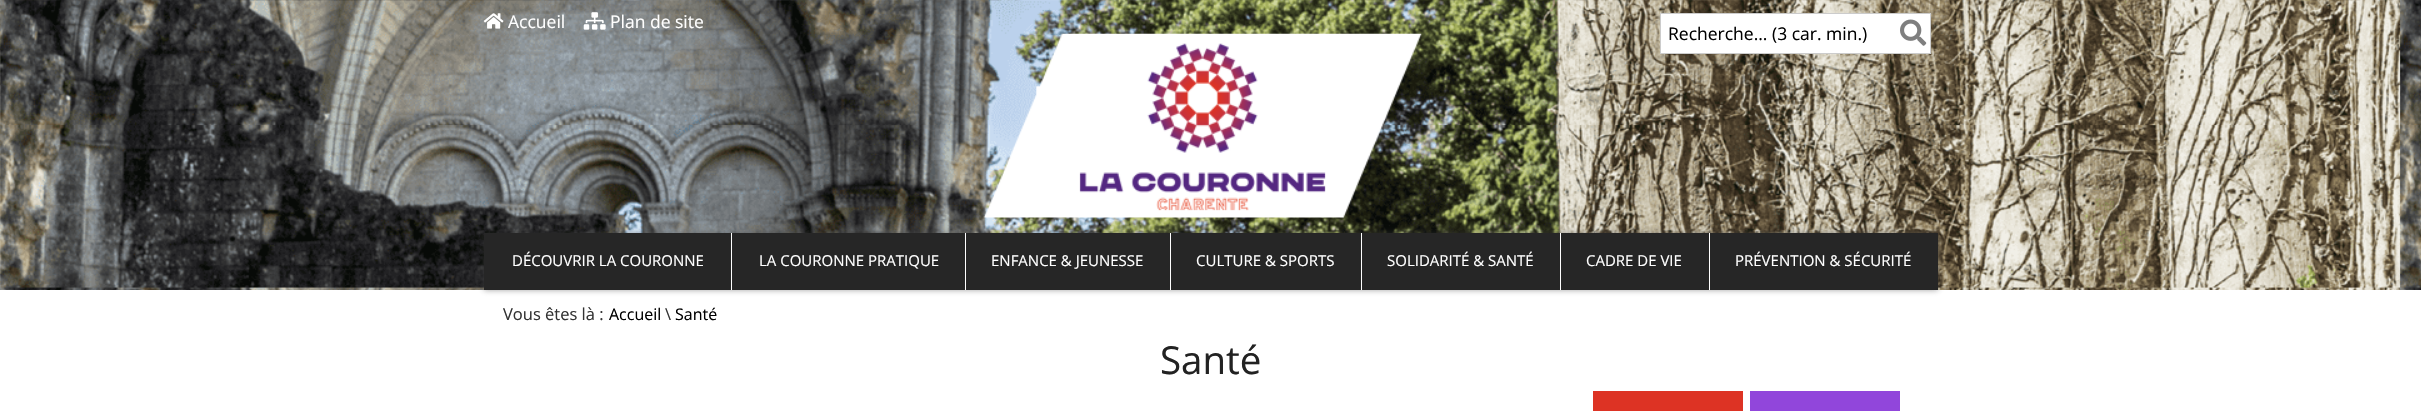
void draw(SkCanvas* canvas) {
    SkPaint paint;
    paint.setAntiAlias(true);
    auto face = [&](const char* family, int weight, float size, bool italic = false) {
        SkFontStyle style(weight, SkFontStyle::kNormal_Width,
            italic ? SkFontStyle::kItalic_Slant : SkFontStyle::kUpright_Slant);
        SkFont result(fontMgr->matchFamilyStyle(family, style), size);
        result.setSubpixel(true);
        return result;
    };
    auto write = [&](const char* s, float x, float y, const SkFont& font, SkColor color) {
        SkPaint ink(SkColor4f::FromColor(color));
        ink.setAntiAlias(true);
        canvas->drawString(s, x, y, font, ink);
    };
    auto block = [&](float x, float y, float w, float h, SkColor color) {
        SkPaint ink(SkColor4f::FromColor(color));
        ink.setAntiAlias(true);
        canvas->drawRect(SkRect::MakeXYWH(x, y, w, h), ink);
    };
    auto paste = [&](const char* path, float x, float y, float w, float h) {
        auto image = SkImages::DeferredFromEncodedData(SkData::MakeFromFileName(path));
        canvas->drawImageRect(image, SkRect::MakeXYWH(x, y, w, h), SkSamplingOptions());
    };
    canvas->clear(SK_ColorWHITE);
    paste("pic1.png", 0, 0, 2421, 290);
    paste("pic2.png", 483, 13, 21, 16);
    auto kFont1 = face("Open Sans", 400, 17.5f);
    write("Accueil", 508, 28, kFont1, SK_ColorWHITE);
    paste("pic3.png", 583, 12, 23, 18);
    write("Plan de site", 610, 28, kFont1, SK_ColorWHITE);
    paint.setColor(SK_ColorWHITE);
    canvas->drawRect(SkRect::MakeXYWH(1660.5f, 13.5f, 270, 40), paint);
    paint.setStyle(SkPaint::kStroke_Style);
    paint.setStrokeWidth(1);
    paint.setColor(SkColorSetRGB(204, 204, 204));
    canvas->drawRect(SkRect::MakeXYWH(1660.5f, 13.5f, 270, 40), paint);
    write("Recherche... (3 car. min.)", 1668, 40, kFont1, SK_ColorBLACK);
    paste("pic4.png", 1900, 19, 27, 27);
    paste("pic5.png", 983, 33, 439, 185);
    paint.setStyle(SkPaint::kFill_Style);
    paint.setColor(SkColorSetARGB(128, 68, 68, 68));
    paint.setMaskFilter(SkMaskFilter::MakeBlur(kNormal_SkBlurStyle, 3));
    canvas->drawRect(SkRect::MakeXYWH(484, 233, 1454, 57), paint);
    paint.setMaskFilter(nullptr);
    block(484, 233, 1454, 57, SkColorSetRGB(38, 38, 38));
    auto kFont2 = face("Open Sans", 400, 15);
    write("DÉCOUVRIR LA COURONNE", 512, 266, kFont2, SK_ColorWHITE);
    block(731, 233, 1, 57, SK_ColorWHITE);
    write("LA COURONNE PRATIQUE", 759, 266, kFont2, SK_ColorWHITE);
    block(965, 233, 1, 57, SK_ColorWHITE);
    write("ENFANCE & JEUNESSE", 991, 266, kFont2, SK_ColorWHITE);
    block(1170, 233, 1, 57, SK_ColorWHITE);
    write("CULTURE & SPORTS", 1196, 266, kFont2, SK_ColorWHITE);
    block(1361, 233, 1, 57, SK_ColorWHITE);
    write("SOLIDARITÉ & SANTÉ", 1387, 266, kFont2, SK_ColorWHITE);
    block(1560, 233, 1, 57, SK_ColorWHITE);
    write("CADRE DE VIE", 1586, 266, kFont2, SK_ColorWHITE);
    block(1709, 233, 1, 57, SK_ColorWHITE);
    write("PRÉVENTION & SÉCURITÉ", 1735, 266, kFont2, SK_ColorWHITE);
    auto kFont3 = face("Open Sans", 400, 16.5f);
    write("Vous êtes là :", 503, 320, kFont3, SkColorSetRGB(51, 51, 51));
    auto kFont4 = face("Open Sans", 400, 16);
    write("Accueil", 609, 320, kFont4, SK_ColorBLACK);
    write("\\", 665, 320, kFont3, SkColorSetRGB(51, 51, 51));
    write("Santé", 675, 320, kFont4, SK_ColorBLACK);
    auto kFont5 = face("Open Sans", 400, 38.5f);
    write("Santé", 1160, 374, kFont5, SkColorSetRGB(34, 34, 34));
    block(1593, 391, 150, 20, SkColorSetRGB(221, 51, 36));
    block(1750, 391, 150, 20, SkColorSetRGB(145, 70, 219));
}
